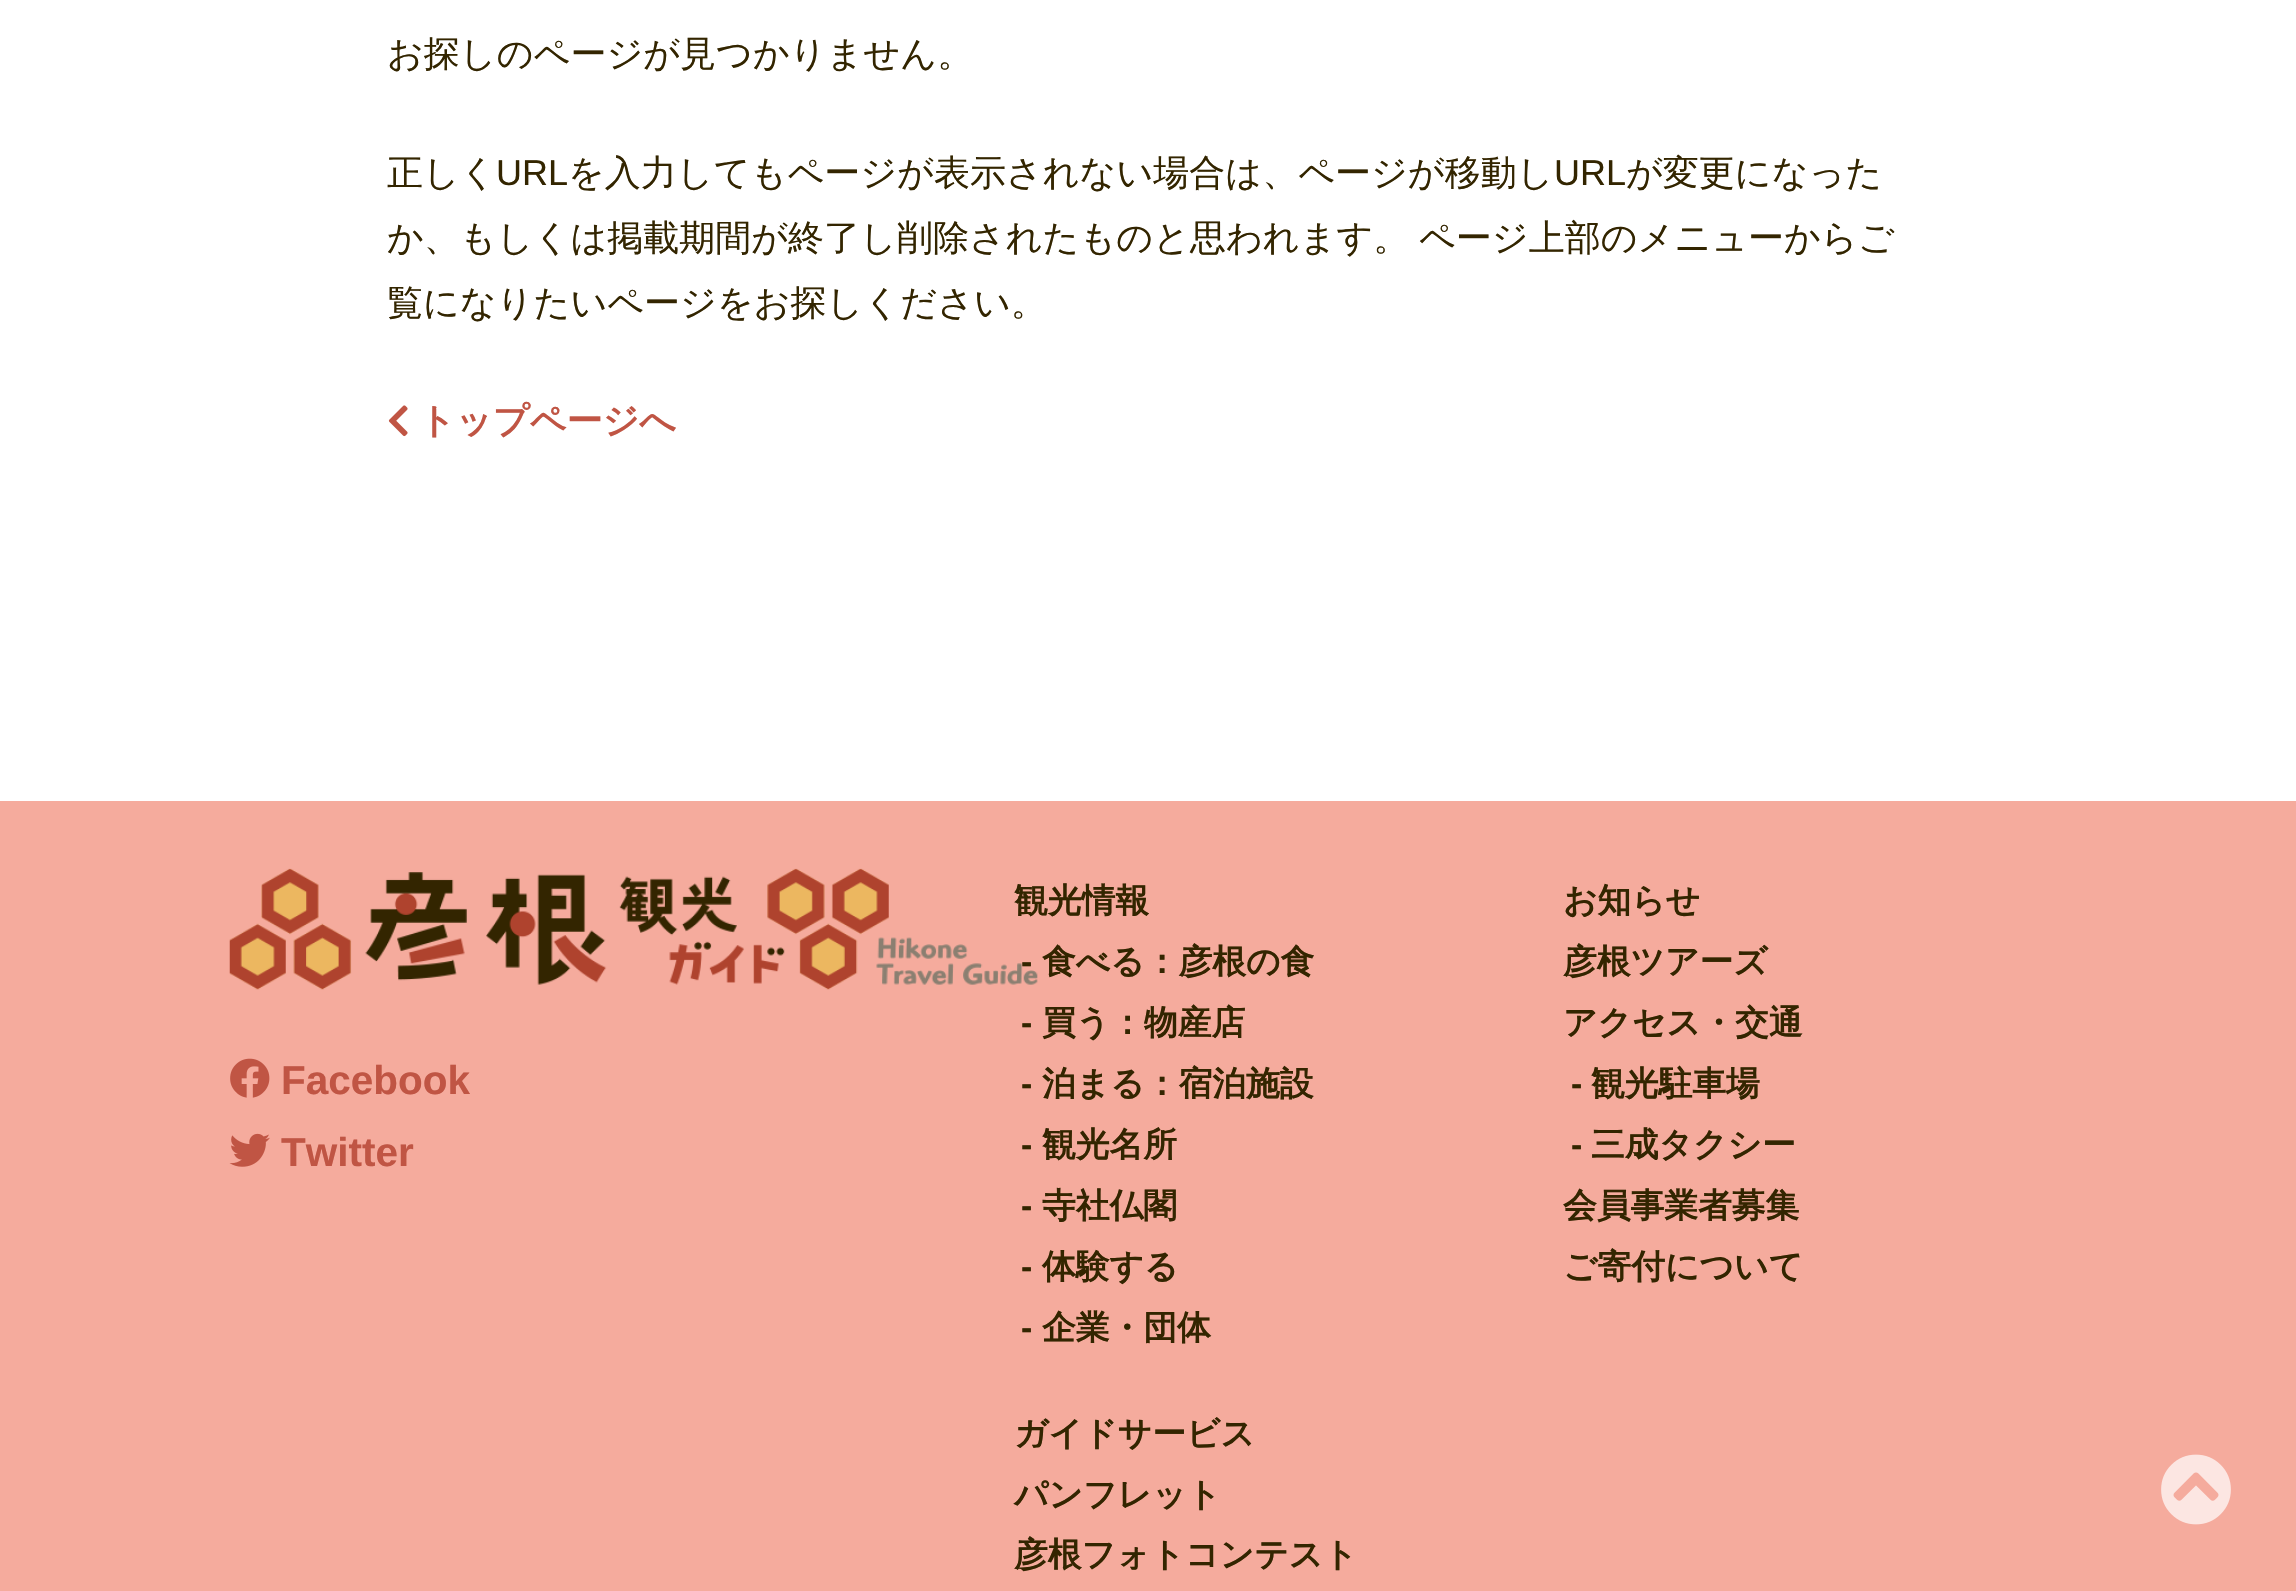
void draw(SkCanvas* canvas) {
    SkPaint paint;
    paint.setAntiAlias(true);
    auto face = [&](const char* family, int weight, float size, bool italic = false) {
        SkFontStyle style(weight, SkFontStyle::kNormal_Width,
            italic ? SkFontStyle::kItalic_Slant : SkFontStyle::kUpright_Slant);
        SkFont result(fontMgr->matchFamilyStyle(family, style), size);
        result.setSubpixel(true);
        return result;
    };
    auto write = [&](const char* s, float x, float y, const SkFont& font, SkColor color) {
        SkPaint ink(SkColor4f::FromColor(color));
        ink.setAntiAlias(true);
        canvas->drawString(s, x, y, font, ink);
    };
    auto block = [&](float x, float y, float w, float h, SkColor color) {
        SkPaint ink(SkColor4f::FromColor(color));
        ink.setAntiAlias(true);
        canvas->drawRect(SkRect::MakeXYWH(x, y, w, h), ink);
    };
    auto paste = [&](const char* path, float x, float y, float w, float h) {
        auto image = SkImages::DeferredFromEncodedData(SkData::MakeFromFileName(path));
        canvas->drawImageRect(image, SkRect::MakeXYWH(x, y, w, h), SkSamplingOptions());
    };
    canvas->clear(SK_ColorWHITE);
    auto kFont1 = face("WenQuanYi Zen Hei", 500, 36);
    write("お探しのページが見つかりません。", 387, 66, kFont1, SkColorSetRGB(51, 37, 0));
    write("正しく", 387, 185, kFont1, SkColorSetRGB(51, 37, 0));
    auto kFont2 = face("Liberation Sans", 400, 36);
    write("URL", 496, 185, kFont2, SkColorSetRGB(51, 37, 0));
    write("を入力してもページが表示されない場合は、ページが移動し", 568, 185, kFont1, SkColorSetRGB(51, 37, 0));
    write("URL", 1554, 185, kFont2, SkColorSetRGB(51, 37, 0));
    write("が変更になった", 1626, 185, kFont1, SkColorSetRGB(51, 37, 0));
    write("か、もしくは掲載期間が終了し削除されたものと思われます。", 387, 250, kFont1, SkColorSetRGB(51, 37, 0));
    write("ページ上部のメニューからご", 1419, 250, kFont1, SkColorSetRGB(51, 37, 0));
    write("覧になりたいページをお探しください。", 387, 315, kFont1, SkColorSetRGB(51, 37, 0));
    paste("pic1.png", 388, 405, 20, 32);
    auto kFont3 = face("WenQuanYi Zen Hei", 700, 36);
    write("トップページへ", 419, 433, kFont3, SkColorSetRGB(192, 85, 68));
    block(0, 801, 2296, 790, SkColorSetRGB(245, 171, 157));
    auto kFont4 = face("WenQuanYi Zen Hei", 700, 33.75f);
    write("観光情報", 1014, 912, kFont4, SkColorSetRGB(51, 37, 0));
    auto kFont5 = face("Liberation Sans", 700, 33.75f);
    write("-", 1021, 973, kFont5, SkColorSetRGB(51, 37, 0));
    paste("pic2.png", 229, 868, 809, 122);
    paste("pic3.png", 230, 1058, 40, 40);
    auto kFont6 = face("Liberation Sans", 700, 40.5f);
    write("Facebook", 281, 1094, kFont6, SkColorSetRGB(192, 85, 68));
    paste("pic4.png", 229, 1133, 41, 34);
    write("Twitter", 281, 1166, kFont6, SkColorSetRGB(192, 85, 68));
    write("食べる：彦根の食", 1042, 973, kFont4, SkColorSetRGB(51, 37, 0));
    write("-", 1021, 1034, kFont5, SkColorSetRGB(51, 37, 0));
    write("買う：物産店", 1042, 1034, kFont4, SkColorSetRGB(51, 37, 0));
    write("-", 1021, 1095, kFont5, SkColorSetRGB(51, 37, 0));
    write("泊まる：宿泊施設", 1042, 1095, kFont4, SkColorSetRGB(51, 37, 0));
    write("-", 1021, 1156, kFont5, SkColorSetRGB(51, 37, 0));
    write("観光名所", 1042, 1156, kFont4, SkColorSetRGB(51, 37, 0));
    write("-", 1021, 1217, kFont5, SkColorSetRGB(51, 37, 0));
    write("寺社仏閣", 1042, 1217, kFont4, SkColorSetRGB(51, 37, 0));
    write("-", 1021, 1278, kFont5, SkColorSetRGB(51, 37, 0));
    write("体験する", 1042, 1278, kFont4, SkColorSetRGB(51, 37, 0));
    write("-", 1021, 1339, kFont5, SkColorSetRGB(51, 37, 0));
    write("企業・団体", 1042, 1339, kFont4, SkColorSetRGB(51, 37, 0));
    write("お知らせ", 1563, 912, kFont4, SkColorSetRGB(51, 37, 0));
    write("彦根ツアーズ", 1563, 973, kFont4, SkColorSetRGB(51, 37, 0));
    write("アクセス・交通", 1563, 1034, kFont4, SkColorSetRGB(51, 37, 0));
    write("-", 1571, 1095, kFont5, SkColorSetRGB(51, 37, 0));
    write("観光駐車場", 1591, 1095, kFont4, SkColorSetRGB(51, 37, 0));
    write("-", 1571, 1156, kFont5, SkColorSetRGB(51, 37, 0));
    write("三成タクシー", 1591, 1156, kFont4, SkColorSetRGB(51, 37, 0));
    write("会員事業者募集", 1563, 1217, kFont4, SkColorSetRGB(51, 37, 0));
    write("ご寄付について", 1563, 1278, kFont4, SkColorSetRGB(51, 37, 0));
    write("ガイドサービス", 1014, 1445, kFont4, SkColorSetRGB(51, 37, 0));
    write("パンフレット", 1014, 1506, kFont4, SkColorSetRGB(51, 37, 0));
    write("彦根フォトコンテスト", 1014, 1566, kFont4, SkColorSetRGB(51, 37, 0));
    paste("pic5.png", 2161, 1454, 70, 71);
}
